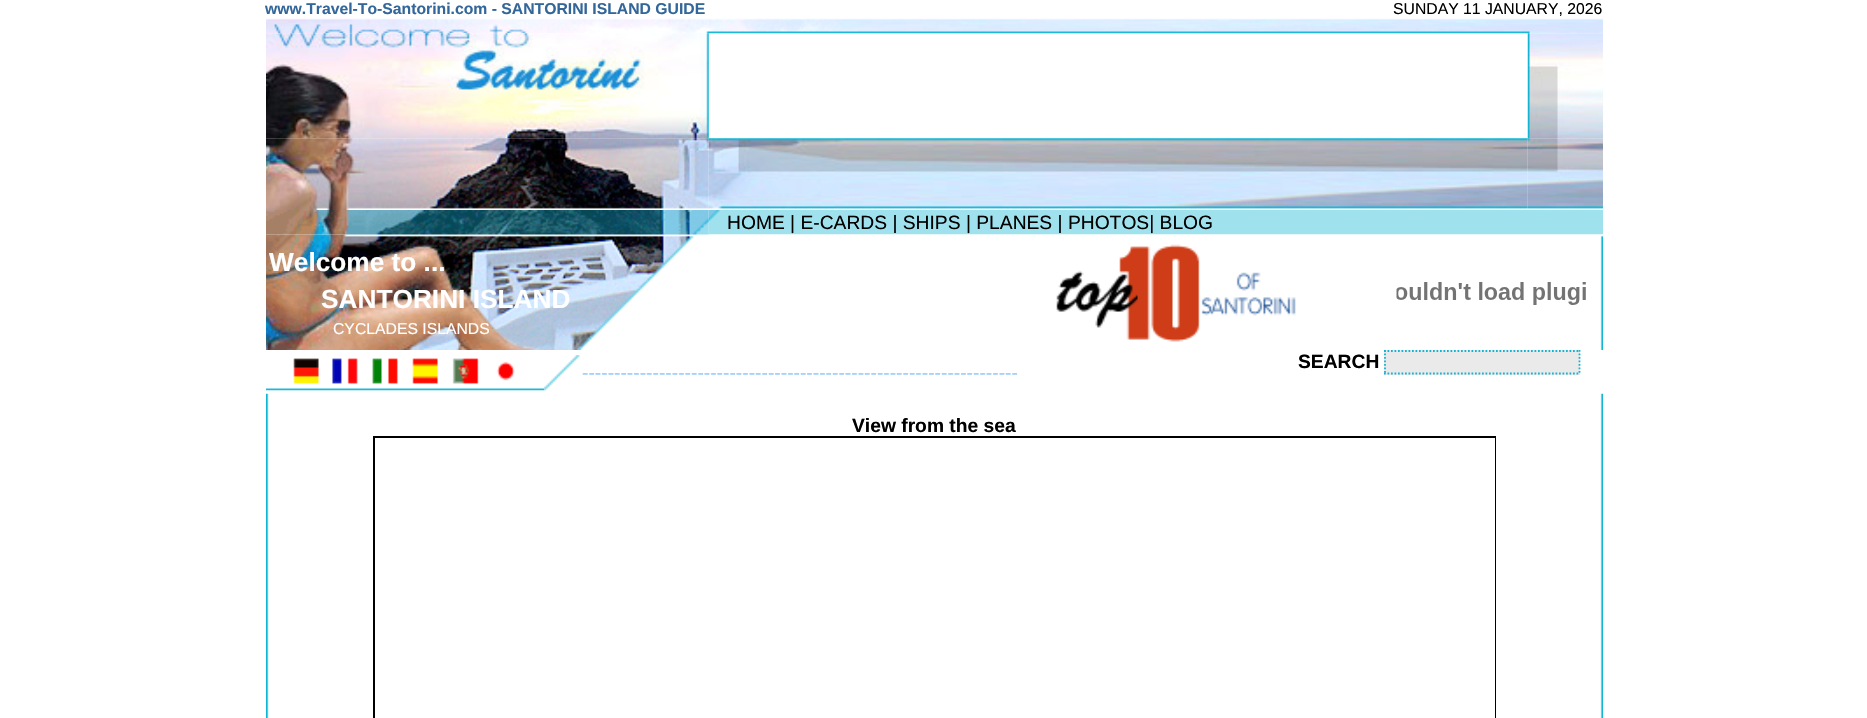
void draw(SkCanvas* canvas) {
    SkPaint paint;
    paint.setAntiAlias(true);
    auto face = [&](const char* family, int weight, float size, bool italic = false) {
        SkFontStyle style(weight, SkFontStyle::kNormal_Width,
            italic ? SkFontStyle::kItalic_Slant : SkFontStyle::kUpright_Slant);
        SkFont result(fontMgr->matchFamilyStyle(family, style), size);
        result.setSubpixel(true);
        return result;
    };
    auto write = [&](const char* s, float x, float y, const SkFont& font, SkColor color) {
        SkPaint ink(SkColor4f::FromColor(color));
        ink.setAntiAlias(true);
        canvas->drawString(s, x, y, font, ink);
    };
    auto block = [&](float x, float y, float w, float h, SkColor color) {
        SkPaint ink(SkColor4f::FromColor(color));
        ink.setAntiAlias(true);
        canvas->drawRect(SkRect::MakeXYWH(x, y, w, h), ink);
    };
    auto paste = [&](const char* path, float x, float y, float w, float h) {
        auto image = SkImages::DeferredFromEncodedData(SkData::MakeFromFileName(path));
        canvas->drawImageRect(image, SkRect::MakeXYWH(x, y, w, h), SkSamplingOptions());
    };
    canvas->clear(SK_ColorWHITE);
    auto kFont1 = face("Liberation Sans", 700, 15.75f);
    write("www.Travel-To-Santorini.com - SANTORINI ISLAND GUIDE", 265, 14, kFont1, SkColorSetRGB(51, 102, 153));
    auto kFont2 = face("Liberation Sans", 400, 15.75f);
    write("SUNDAY 11 JANUARY, 2026", 1393, 14, kFont2, SK_ColorBLACK);
    paste("pic1.png", 266, 18, 1337, 16);
    paste("pic2.png", 266, 33, 443, 106);
    paste("pic3.png", 1527, 33, 76, 106);
    paste("pic4.png", 266, 138, 443, 72);
    paste("pic5.png", 708, 138, 820, 71);
    paste("pic6.png", 1527, 138, 76, 71);
    paste("pic8.png", 708, 210, 895, 25);
    paste("pic9.png", 266, 234, 443, 116);
    paste("pic7.png", 266, 210, 443, 25);
    auto kFont3 = face("Liberation Sans", 400, 19.25f);
    write("HOME | E-CARDS | SHIPS | PLANES | PHOTOS| BLOG", 727, 229, kFont3, SK_ColorBLACK);
    auto kFont4 = face("Liberation Sans", 700, 26.25f);
    write("Welcome to ...", 269, 271, kFont4, SK_ColorWHITE);
    write("SANTORINI ISLAND", 321, 308, kFont4, SK_ColorWHITE);
    write("CYCLADES ISLANDS", 333, 334, kFont2, SK_ColorWHITE);
    paste("pic10.png", 709, 234, 894, 116);
    paste("pic11.png", 1056, 244, 240, 98);
    paste("pic12.png", 1396, 282, 190, 23);
    paste("pic13.png", 266, 358, 279, 33);
    paste("pic14.png", 544, 355, 36, 36);
    write("--------------------------------------------------------------------", 582, 379, kFont3, SkColorSetRGB(153, 204, 255));
    auto kFont5 = face("Liberation Sans", 700, 19.25f);
    write("SEARCH", 1298, 368, kFont5, SK_ColorBLACK);
    block(1384, 350, 196, 25, SkColorSetRGB(234, 234, 234));
    paint.setStyle(SkPaint::kStroke_Style);
    paint.setStrokeWidth(1.8f);
    paint.setColor(SkColorSetRGB(18, 180, 212));
    paint.setPathEffect(SkDashPathEffect::Make({{1.75f, 1.75f}}, 0));
    canvas->drawPath(SkPathBuilder().moveTo(1384, 351).lineTo(1580, 351).detach(), paint);
    paint.setPathEffect(nullptr);
    paint.setPathEffect(SkDashPathEffect::Make({{1.75f, 1.75f}}, 0));
    canvas->drawPath(SkPathBuilder().moveTo(1579.5f, 350).lineTo(1579.5f, 374.5f).detach(), paint);
    paint.setPathEffect(nullptr);
    paint.setPathEffect(SkDashPathEffect::Make({{1.75f, 1.75f}}, 0));
    canvas->drawPath(SkPathBuilder().moveTo(1384, 373.5f).lineTo(1580, 373.5f).detach(), paint);
    paint.setPathEffect(nullptr);
    paint.setPathEffect(SkDashPathEffect::Make({{1.75f, 1.75f}}, 0));
    canvas->drawPath(SkPathBuilder().moveTo(1385, 350).lineTo(1385, 374.5f).detach(), paint);
    paint.setPathEffect(nullptr);
    paste("pic15.png", 266, 393, 1337, 325);
    write("View from the sea", 852, 432, kFont5, SK_ColorBLACK);
    block(373, 436, 1123, 282, SK_ColorBLACK);
    block(375, 438, 1120, 280, SK_ColorWHITE);
}
